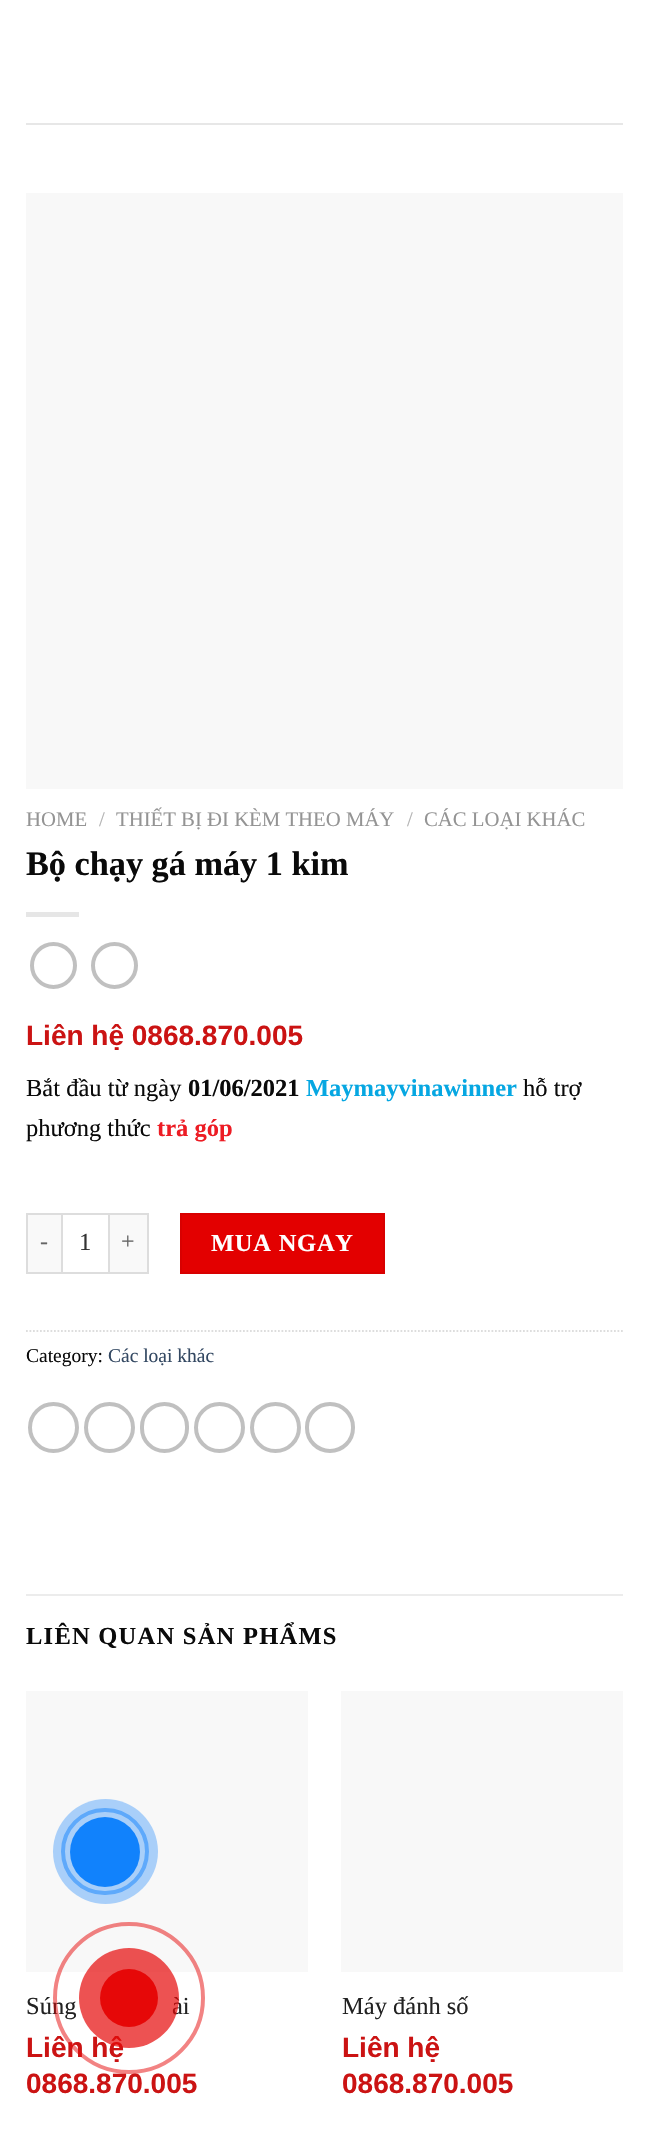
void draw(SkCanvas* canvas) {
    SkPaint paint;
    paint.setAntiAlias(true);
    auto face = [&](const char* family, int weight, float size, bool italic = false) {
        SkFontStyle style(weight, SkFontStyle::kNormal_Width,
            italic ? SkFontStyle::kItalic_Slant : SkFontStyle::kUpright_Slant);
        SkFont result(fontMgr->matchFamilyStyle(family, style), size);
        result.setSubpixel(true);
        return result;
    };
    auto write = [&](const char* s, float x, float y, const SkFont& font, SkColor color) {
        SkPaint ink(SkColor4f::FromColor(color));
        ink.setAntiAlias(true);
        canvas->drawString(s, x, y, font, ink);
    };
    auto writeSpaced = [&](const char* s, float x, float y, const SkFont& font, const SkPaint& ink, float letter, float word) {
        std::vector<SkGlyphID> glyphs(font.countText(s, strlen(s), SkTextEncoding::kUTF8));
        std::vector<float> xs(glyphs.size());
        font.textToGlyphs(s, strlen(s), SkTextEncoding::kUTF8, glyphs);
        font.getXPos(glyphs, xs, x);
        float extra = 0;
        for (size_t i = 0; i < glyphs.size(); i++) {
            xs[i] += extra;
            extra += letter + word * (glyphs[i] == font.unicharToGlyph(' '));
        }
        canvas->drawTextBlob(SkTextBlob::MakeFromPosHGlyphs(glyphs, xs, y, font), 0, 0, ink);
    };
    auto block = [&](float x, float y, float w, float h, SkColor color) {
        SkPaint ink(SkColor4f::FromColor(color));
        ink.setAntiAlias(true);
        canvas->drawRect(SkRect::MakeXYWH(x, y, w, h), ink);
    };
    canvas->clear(SK_ColorWHITE);
    block(26, 123, 597, 2, SkColorSetRGB(231, 231, 231));
    block(26, 193, 597, 596, SkColorSetRGB(248, 248, 248));
    auto kFont1 = face("Liberation Serif", 400, 20.75f);
    write("HOME", 26, 826, kFont1, SkColorSetRGB(148, 148, 148));
    write("/", 99, 826, kFont1, SkColorSetRGB(178, 178, 178));
    write("THIẾT BỊ ĐI KÈM THEO MÁY", 116, 826, kFont1, SkColorSetRGB(148, 148, 148));
    write("/", 407, 826, kFont1, SkColorSetRGB(178, 178, 178));
    write("CÁC LOẠI KHÁC", 424, 826, kFont1, SkColorSetRGB(148, 148, 148));
    auto kFont2 = face("Liberation Serif", 700, 34.25f);
    write("Bộ chạy gá máy 1 kim", 26, 875, kFont2, SkColorSetRGB(10, 10, 10));
    block(26, 912, 53, 5, SkColorSetRGB(230, 230, 230));
    paint.setStyle(SkPaint::kStroke_Style);
    paint.setStrokeWidth(4);
    paint.setColor(SkColorSetRGB(192, 192, 192));
    canvas->drawCircle(53.5f, 965.5f, 21.5f, paint);
    canvas->drawCircle(114.5f, 965.5f, 21.5f, paint);
    auto kFont3 = face("Liberation Sans", 700, 28);
    write("Liên hệ 0868.870.005", 26, 1045, kFont3, SkColorSetRGB(203, 19, 19));
    auto kFont4 = face("Liberation Serif", 400, 24.5f);
    write("Bắt đầu từ ngày", 26, 1096, kFont4, SkColorSetRGB(10, 10, 10));
    auto kFont5 = face("Liberation Serif", 700, 24.5f);
    write("01/06/2021", 188, 1096, kFont5, SkColorSetRGB(10, 10, 10));
    write("Maymayvinawinner", 306, 1096, kFont5, SkColorSetRGB(6, 167, 226));
    write("hỗ trợ", 523, 1096, kFont4, SkColorSetRGB(10, 10, 10));
    write("phương thức", 26, 1136, kFont4, SkColorSetRGB(10, 10, 10));
    write("trả góp", 157, 1136, kFont5, SkColorSetRGB(237, 28, 36));
    block(28, 1215, 33, 57, SkColorSetRGB(249, 249, 249));
    block(26, 1213, 35, 2, SkColorSetRGB(221, 221, 221));
    block(26, 1272, 35, 2, SkColorSetRGB(221, 221, 221));
    block(26, 1213, 2, 61, SkColorSetRGB(221, 221, 221));
    auto kFont6 = face("Liberation Serif", 400, 24);
    paint.setStyle(SkPaint::kFill_Style);
    paint.setColor(SkColorSetRGB(102, 102, 102));
    writeSpaced("-", 40, 1249, kFont6, paint, 1, 0);
    paint.setStyle(SkPaint::kStroke_Style);
    paint.setStrokeWidth(2);
    paint.setColor(SkColorSetRGB(221, 221, 221));
    canvas->drawRect(SkRect::MakeXYWH(62, 1214, 47, 59), paint);
    write("1", 79, 1250, kFont4, SkColorSetRGB(51, 51, 51));
    block(110, 1215, 37, 57, SkColorSetRGB(249, 249, 249));
    block(110, 1213, 39, 2, SkColorSetRGB(221, 221, 221));
    block(147, 1213, 2, 61, SkColorSetRGB(221, 221, 221));
    block(110, 1272, 39, 2, SkColorSetRGB(221, 221, 221));
    paint.setStyle(SkPaint::kFill_Style);
    paint.setColor(SkColorSetRGB(102, 102, 102));
    writeSpaced("+", 121, 1249, kFont6, paint, 1, 0);
    paint.setColor(SkColorSetRGB(227, 0, 0));
    canvas->drawRect(SkRect::MakeXYWH(181, 1214, 203, 59), paint);
    paint.setStyle(SkPaint::kStroke_Style);
    paint.setColor(SkColorSetRGB(216, 0, 0));
    canvas->drawRect(SkRect::MakeXYWH(181, 1214, 203, 59), paint);
    paint.setStyle(SkPaint::kFill_Style);
    paint.setColor(SK_ColorWHITE);
    writeSpaced("MUA NGAY", 211, 1251, kFont5, paint, 0.75f, 0);
    paint.setStyle(SkPaint::kStroke_Style);
    paint.setStrokeWidth(1.8f);
    paint.setColor(SkColorSetRGB(221, 221, 221));
    paint.setPathEffect(SkDashPathEffect::Make({{1.75f, 1.75f}}, 0));
    canvas->drawPath(SkPathBuilder().moveTo(26, 1331).lineTo(623, 1331).detach(), paint);
    paint.setPathEffect(nullptr);
    auto kFont7 = face("Liberation Serif", 400, 19.5f);
    write("Category:", 26, 1362, kFont7, SkColorSetRGB(10, 10, 10));
    write("Các loại khác", 108, 1362, kFont7, SkColorSetRGB(51, 72, 98));
    paint.setStrokeWidth(4);
    paint.setColor(SkColorSetRGB(192, 192, 192));
    canvas->drawCircle(53.5f, 1427.5f, 23.5f, paint);
    canvas->drawCircle(109.5f, 1427.5f, 23.5f, paint);
    canvas->drawRoundRect(SkRect::MakeXYWH(142, 1404, 45, 47), 22.5f, 22.5f, paint);
    canvas->drawCircle(219.5f, 1427.5f, 23.5f, paint);
    canvas->drawCircle(275.5f, 1427.5f, 23.5f, paint);
    canvas->drawRoundRect(SkRect::MakeXYWH(307, 1404, 46, 47), 23, 23, paint);
    block(26, 1594, 597, 2, SkColorSetRGB(236, 236, 236));
    paint.setStyle(SkPaint::kFill_Style);
    paint.setColor(SkColorSetRGB(10, 10, 10));
    writeSpaced("LIÊN QUAN SẢN PHẨMS", 26, 1644, kFont5, paint, 1.25f, 0);
    block(26, 1691, 282, 281, SkColorSetRGB(248, 248, 248));
    write("Súng", 26, 2014, kFont4, SkColorSetRGB(34, 34, 34));
    write("ài", 172, 2014, kFont4, SkColorSetRGB(34, 34, 34));
    write("Liên hệ", 26, 2057, kFont3, SkColorSetRGB(203, 19, 19));
    write("0868.870.005", 26, 2093, kFont3, SkColorSetRGB(203, 19, 19));
    block(341, 1691, 282, 281, SkColorSetRGB(248, 248, 248));
    write("Máy đánh số", 342, 2014, kFont4, SkColorSetRGB(34, 34, 34));
    write("Liên hệ", 342, 2057, kFont3, SkColorSetRGB(203, 19, 19));
    write("0868.870.005", 342, 2093, kFont3, SkColorSetRGB(203, 19, 19));
    paint.setStyle(SkPaint::kStroke_Style);
    paint.setColor(SkColorSetRGB(133, 189, 250));
    canvas->drawRoundRect(SkRect::MakeXYWH(63, 1810, 84, 83), 41.5f, 41.5f, paint);
    paint.setStyle(SkPaint::kFill_Style);
    paint.setColor(SkColorSetARGB(87, 17, 130, 252));
    canvas->drawCircle(105.5f, 1851.5f, 52.5f, paint);
    paint.setColor(SkColorSetRGB(17, 130, 252));
    canvas->drawCircle(105, 1852, 35, paint);
    paint.setStyle(SkPaint::kStroke_Style);
    paint.setColor(SkColorSetARGB(128, 230, 8, 8));
    canvas->drawCircle(129, 1998, 74, paint);
    paint.setStyle(SkPaint::kFill_Style);
    paint.setColor(SkColorSetARGB(179, 230, 8, 8));
    canvas->drawCircle(129, 1998, 50, paint);
    paint.setColor(SkColorSetRGB(230, 8, 8));
    canvas->drawCircle(129, 1998, 29, paint);
}
